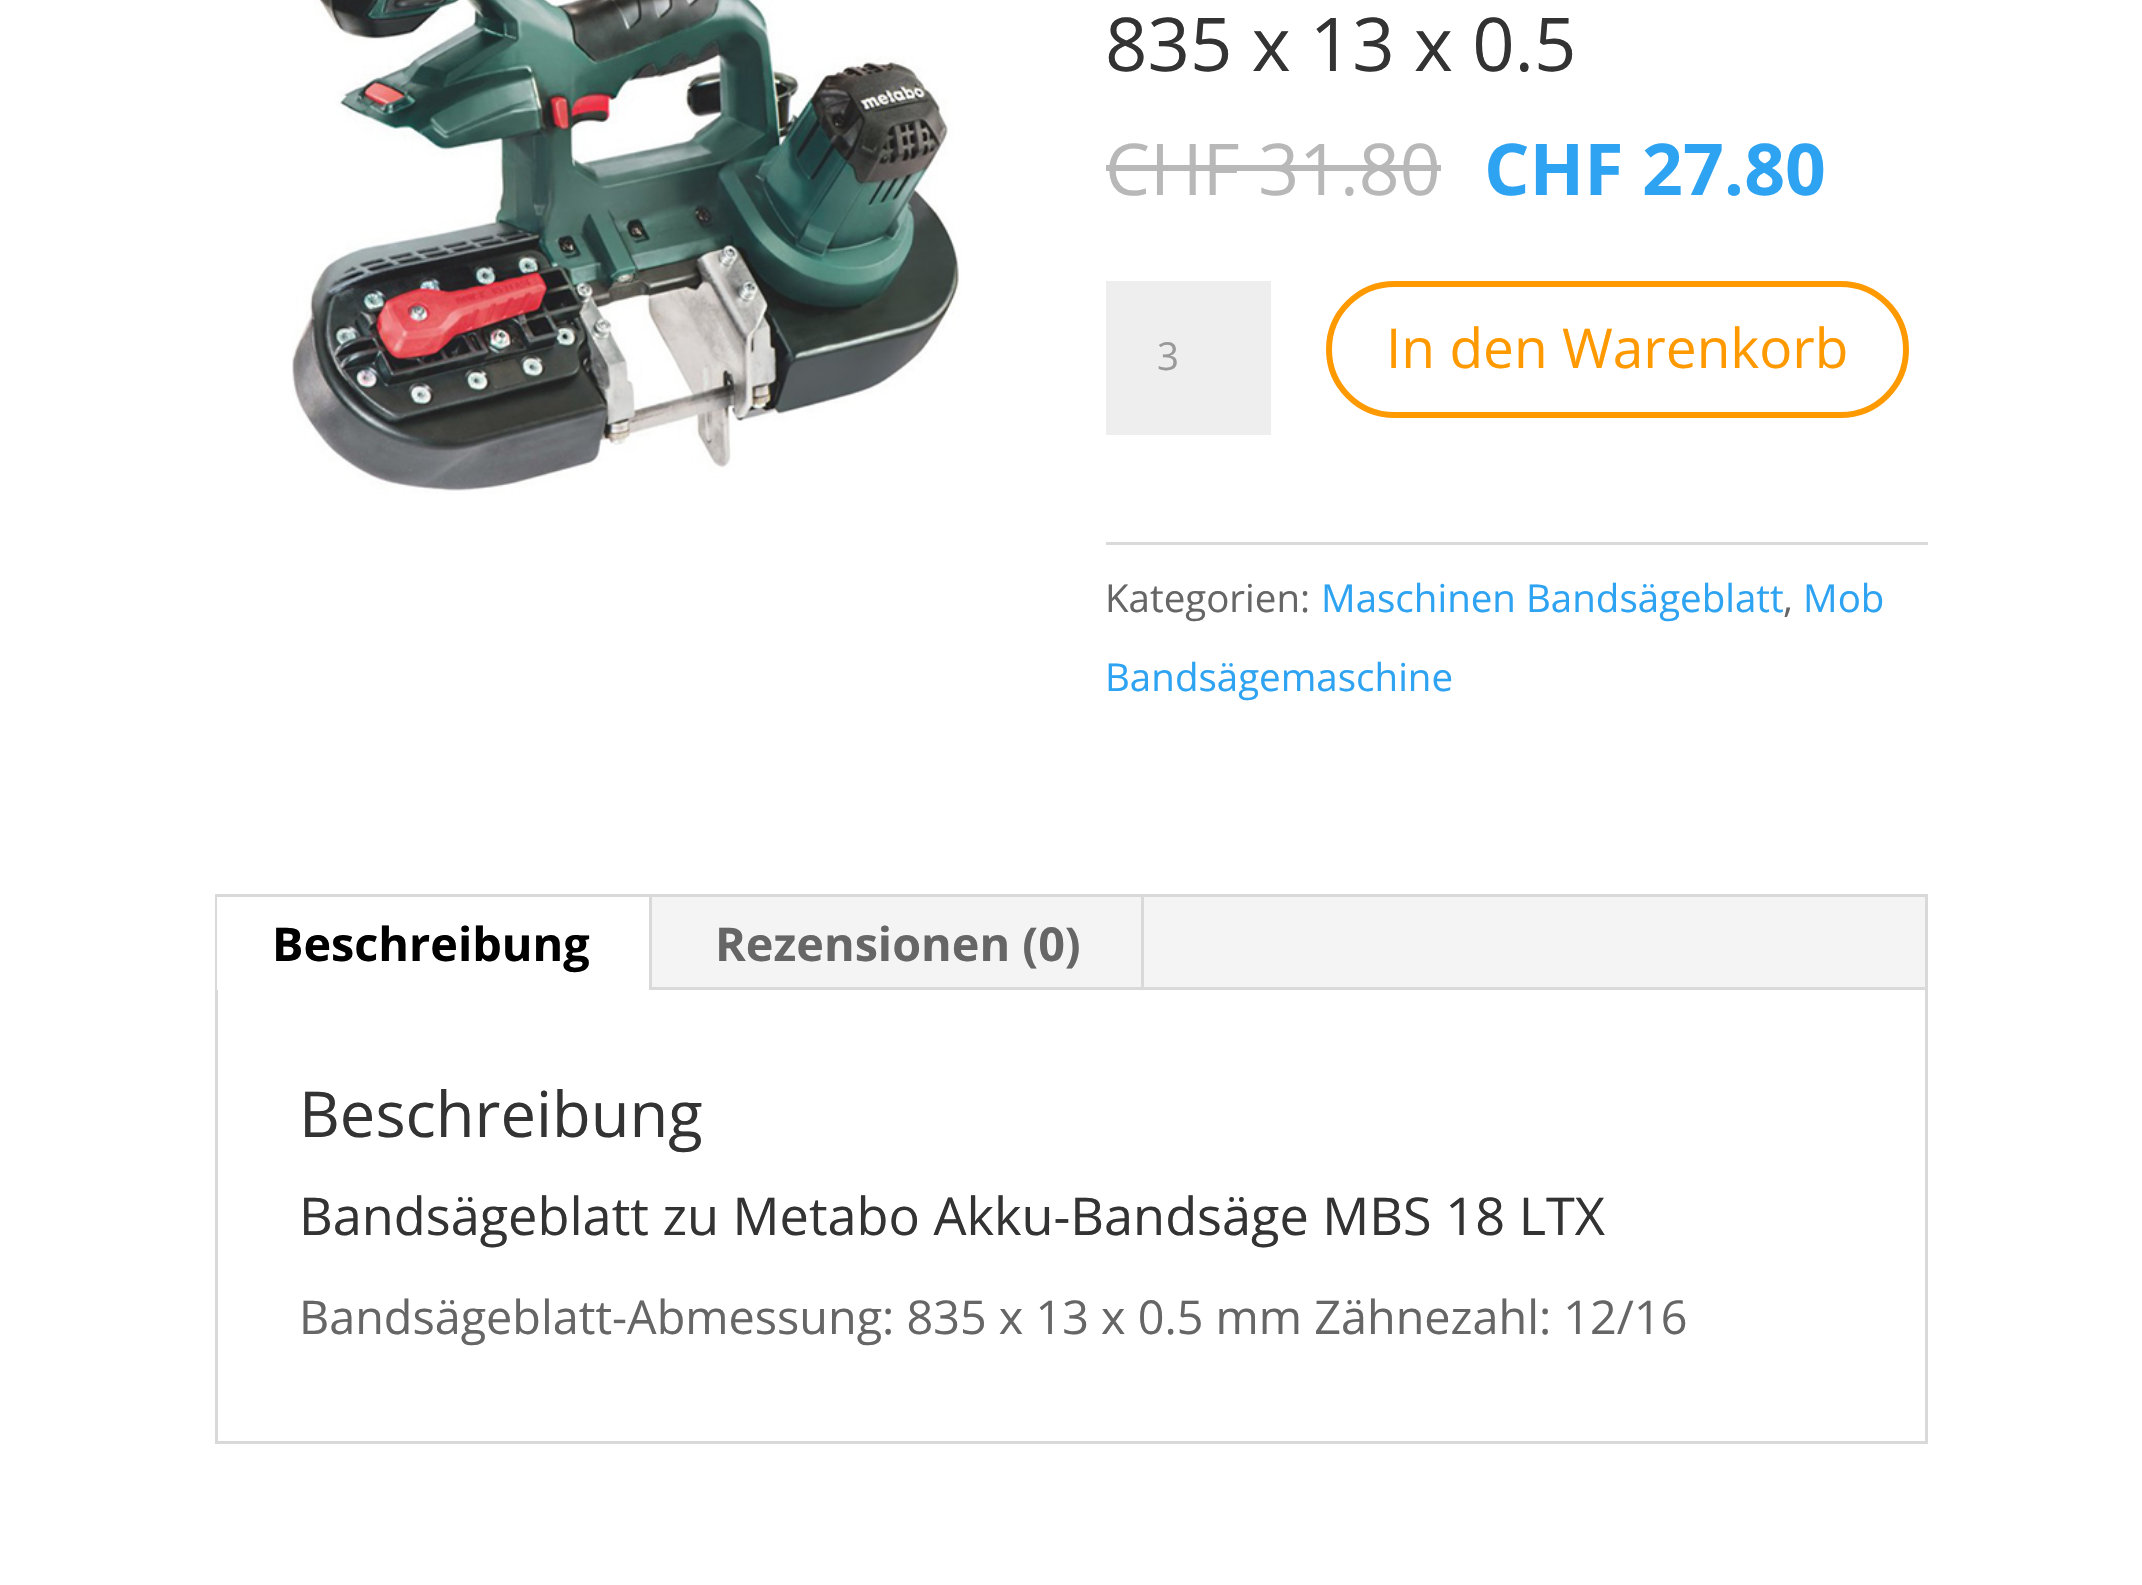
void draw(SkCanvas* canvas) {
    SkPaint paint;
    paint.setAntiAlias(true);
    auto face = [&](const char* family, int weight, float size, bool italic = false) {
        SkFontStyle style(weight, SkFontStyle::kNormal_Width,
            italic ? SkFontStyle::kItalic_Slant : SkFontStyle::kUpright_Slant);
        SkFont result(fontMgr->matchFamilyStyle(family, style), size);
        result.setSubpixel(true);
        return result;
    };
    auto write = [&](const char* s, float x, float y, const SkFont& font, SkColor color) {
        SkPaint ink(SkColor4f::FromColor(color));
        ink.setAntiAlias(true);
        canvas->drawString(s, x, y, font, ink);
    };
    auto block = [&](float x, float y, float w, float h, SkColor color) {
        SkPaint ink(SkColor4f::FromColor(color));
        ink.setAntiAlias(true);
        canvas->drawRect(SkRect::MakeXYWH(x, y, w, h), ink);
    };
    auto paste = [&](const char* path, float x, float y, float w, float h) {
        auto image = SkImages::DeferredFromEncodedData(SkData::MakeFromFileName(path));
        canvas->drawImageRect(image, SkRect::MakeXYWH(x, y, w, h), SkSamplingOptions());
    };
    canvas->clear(SK_ColorWHITE);
    paste("pic1.png", 292, 0, 669, 494);
    auto kFont1 = face("Open Sans", 400, 74.25f);
    write("835 x 13 x 0.5", 1105, 71, kFont1, SkColorSetRGB(51, 51, 51));
    auto kFont2 = face("Open Sans", 400, 71.5f);
    write("CHF 31.80", 1105, 195, kFont2, SkColorSetRGB(184, 184, 184));
    block(1106, 165, 335, 6, SkColorSetRGB(184, 184, 184));
    auto kFont3 = face("Open Sans", 700, 71.5f);
    write("CHF 27.80", 1484, 195, kFont3, SkColorSetRGB(46, 163, 242));
    block(1106, 281, 165, 154, SkColorSetRGB(238, 238, 238));
    auto kFont4 = face("Open Sans", 400, 38.5f);
    write("3", 1157, 370, kFont4, SkColorSetRGB(153, 153, 153));
    paint.setStyle(SkPaint::kStroke_Style);
    paint.setStrokeWidth(6);
    paint.setColor(SkColorSetRGB(255, 153, 0));
    canvas->drawRoundRect(SkRect::MakeXYWH(1329, 284, 577, 131), 65.5f, 65.5f, paint);
    auto kFont5 = face("Open Sans", 400, 55);
    write("In den Warenkorb", 1386, 368, kFont5, SkColorSetRGB(255, 153, 0));
    block(1106, 542, 822, 3, SkColorSetRGB(218, 218, 218));
    write("Kategorien:", 1105, 612, kFont4, SkColorSetRGB(102, 102, 102));
    write("Maschinen Bandsägeblatt", 1321, 612, kFont4, SkColorSetRGB(46, 163, 242));
    write(",", 1783, 612, kFont4, SkColorSetRGB(102, 102, 102));
    write("Mob", 1803, 612, kFont4, SkColorSetRGB(46, 163, 242));
    write("Bandsägemaschine", 1105, 691, kFont4, SkColorSetRGB(46, 163, 242));
    paint.setStrokeWidth(3);
    paint.setColor(SkColorSetRGB(217, 217, 217));
    canvas->drawRect(SkRect::MakeXYWH(216.5f, 895.5f, 1710, 547), paint);
    block(652, 897, 1273, 90, SkColorSetRGB(244, 244, 244));
    block(217, 897, 1, 93, SK_ColorWHITE);
    block(649, 897, 3, 93, SkColorSetRGB(217, 217, 217));
    auto kFont6 = face("Open Sans", 700, 46.75f);
    write("Beschreibung", 272, 961, kFont6, SK_ColorBLACK);
    block(1141, 897, 3, 93, SkColorSetRGB(217, 217, 217));
    write("Rezensionen (0)", 715, 961, kFont6, SkColorSetRGB(102, 102, 102));
    block(652, 987, 1273, 3, SkColorSetRGB(217, 217, 217));
    auto kFont7 = face("Open Sans", 400, 63.25f);
    write("Beschreibung", 299, 1137, kFont7, SkColorSetRGB(51, 51, 51));
    auto kFont8 = face("Open Sans", 400, 52.25f);
    write("Bandsägeblatt zu Metabo Akku-Bandsäge MBS 18 LTX", 299, 1235, kFont8, SkColorSetRGB(51, 51, 51));
    auto kFont9 = face("Open Sans", 400, 46.75f);
    write("Bandsägeblatt-Abmessung: 835 x 13 x 0.5 mm Zähnezahl: 12/16", 299, 1334, kFont9, SkColorSetRGB(102, 102, 102));
}
